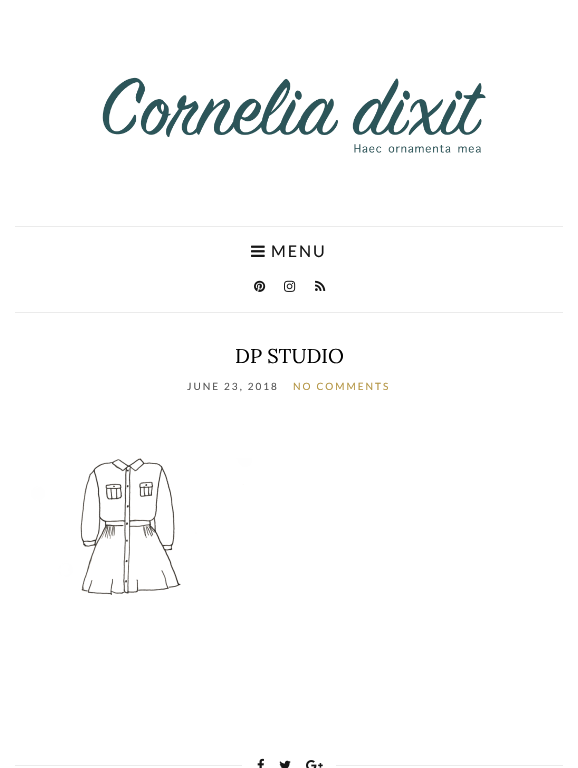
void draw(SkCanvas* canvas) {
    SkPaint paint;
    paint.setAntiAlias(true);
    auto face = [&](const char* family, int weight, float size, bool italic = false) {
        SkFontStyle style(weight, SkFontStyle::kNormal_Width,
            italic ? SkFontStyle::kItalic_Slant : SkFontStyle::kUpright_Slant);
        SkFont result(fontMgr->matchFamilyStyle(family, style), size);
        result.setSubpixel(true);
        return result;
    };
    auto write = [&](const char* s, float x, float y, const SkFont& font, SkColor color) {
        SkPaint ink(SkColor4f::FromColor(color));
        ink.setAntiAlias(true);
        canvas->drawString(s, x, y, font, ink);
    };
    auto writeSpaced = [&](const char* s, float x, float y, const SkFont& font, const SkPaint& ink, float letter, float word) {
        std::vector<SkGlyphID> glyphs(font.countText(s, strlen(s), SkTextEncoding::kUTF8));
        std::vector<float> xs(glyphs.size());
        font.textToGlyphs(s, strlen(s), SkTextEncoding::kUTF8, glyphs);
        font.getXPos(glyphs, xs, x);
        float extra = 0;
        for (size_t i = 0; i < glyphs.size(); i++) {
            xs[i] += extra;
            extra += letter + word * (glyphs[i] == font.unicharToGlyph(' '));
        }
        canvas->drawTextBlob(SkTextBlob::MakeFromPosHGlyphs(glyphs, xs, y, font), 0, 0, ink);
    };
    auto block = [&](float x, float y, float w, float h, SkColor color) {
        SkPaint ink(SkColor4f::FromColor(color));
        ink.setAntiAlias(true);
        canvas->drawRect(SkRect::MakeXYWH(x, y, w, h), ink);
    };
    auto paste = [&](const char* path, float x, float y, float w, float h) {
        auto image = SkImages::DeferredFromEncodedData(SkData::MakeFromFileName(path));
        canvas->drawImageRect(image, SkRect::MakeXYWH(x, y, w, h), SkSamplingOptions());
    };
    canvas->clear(SK_ColorWHITE);
    paste("pic1.png", 102, 77, 384, 76);
    block(15, 226, 548, 1, SkColorSetRGB(235, 235, 235));
    block(15, 312, 548, 1, SkColorSetRGB(235, 235, 235));
    paste("pic2.png", 251, 245, 14, 12);
    auto kFont1 = face("Lato", 400, 16);
    paint.setColor(SkColorSetRGB(22, 22, 22));
    writeSpaced("MENU", 271, 257, kFont1, paint, 2, 0);
    paste("pic3.png", 254, 280, 12, 12);
    paste("pic4.png", 284, 280, 12, 12);
    paste("pic5.png", 315, 280, 11, 11);
    auto kFont2 = face("Lora", 400, 20);
    write("DP STUDIO", 235, 363, kFont2, SK_ColorBLACK);
    auto kFont3 = face("Lato", 400, 10);
    paint.setColor(SkColorSetRGB(84, 84, 84));
    writeSpaced("JUNE 23, 2018", 187, 390, kFont3, paint, 2, 0);
    paint.setColor(SkColorSetRGB(180, 149, 67));
    writeSpaced("NO COMMENTS", 293, 390, kFont3, paint, 2, 0);
    paste("pic6.png", 15, 458, 238, 137);
    block(15, 765, 548, 1, SkColorSetRGB(235, 235, 235));
    block(242, 765, 94, 1, SK_ColorWHITE);
    paste("pic7.png", 257, 758, 7, 10);
    paste("pic8.png", 279, 760, 12, 8);
    paste("pic9.png", 306, 760, 17, 8);
}
